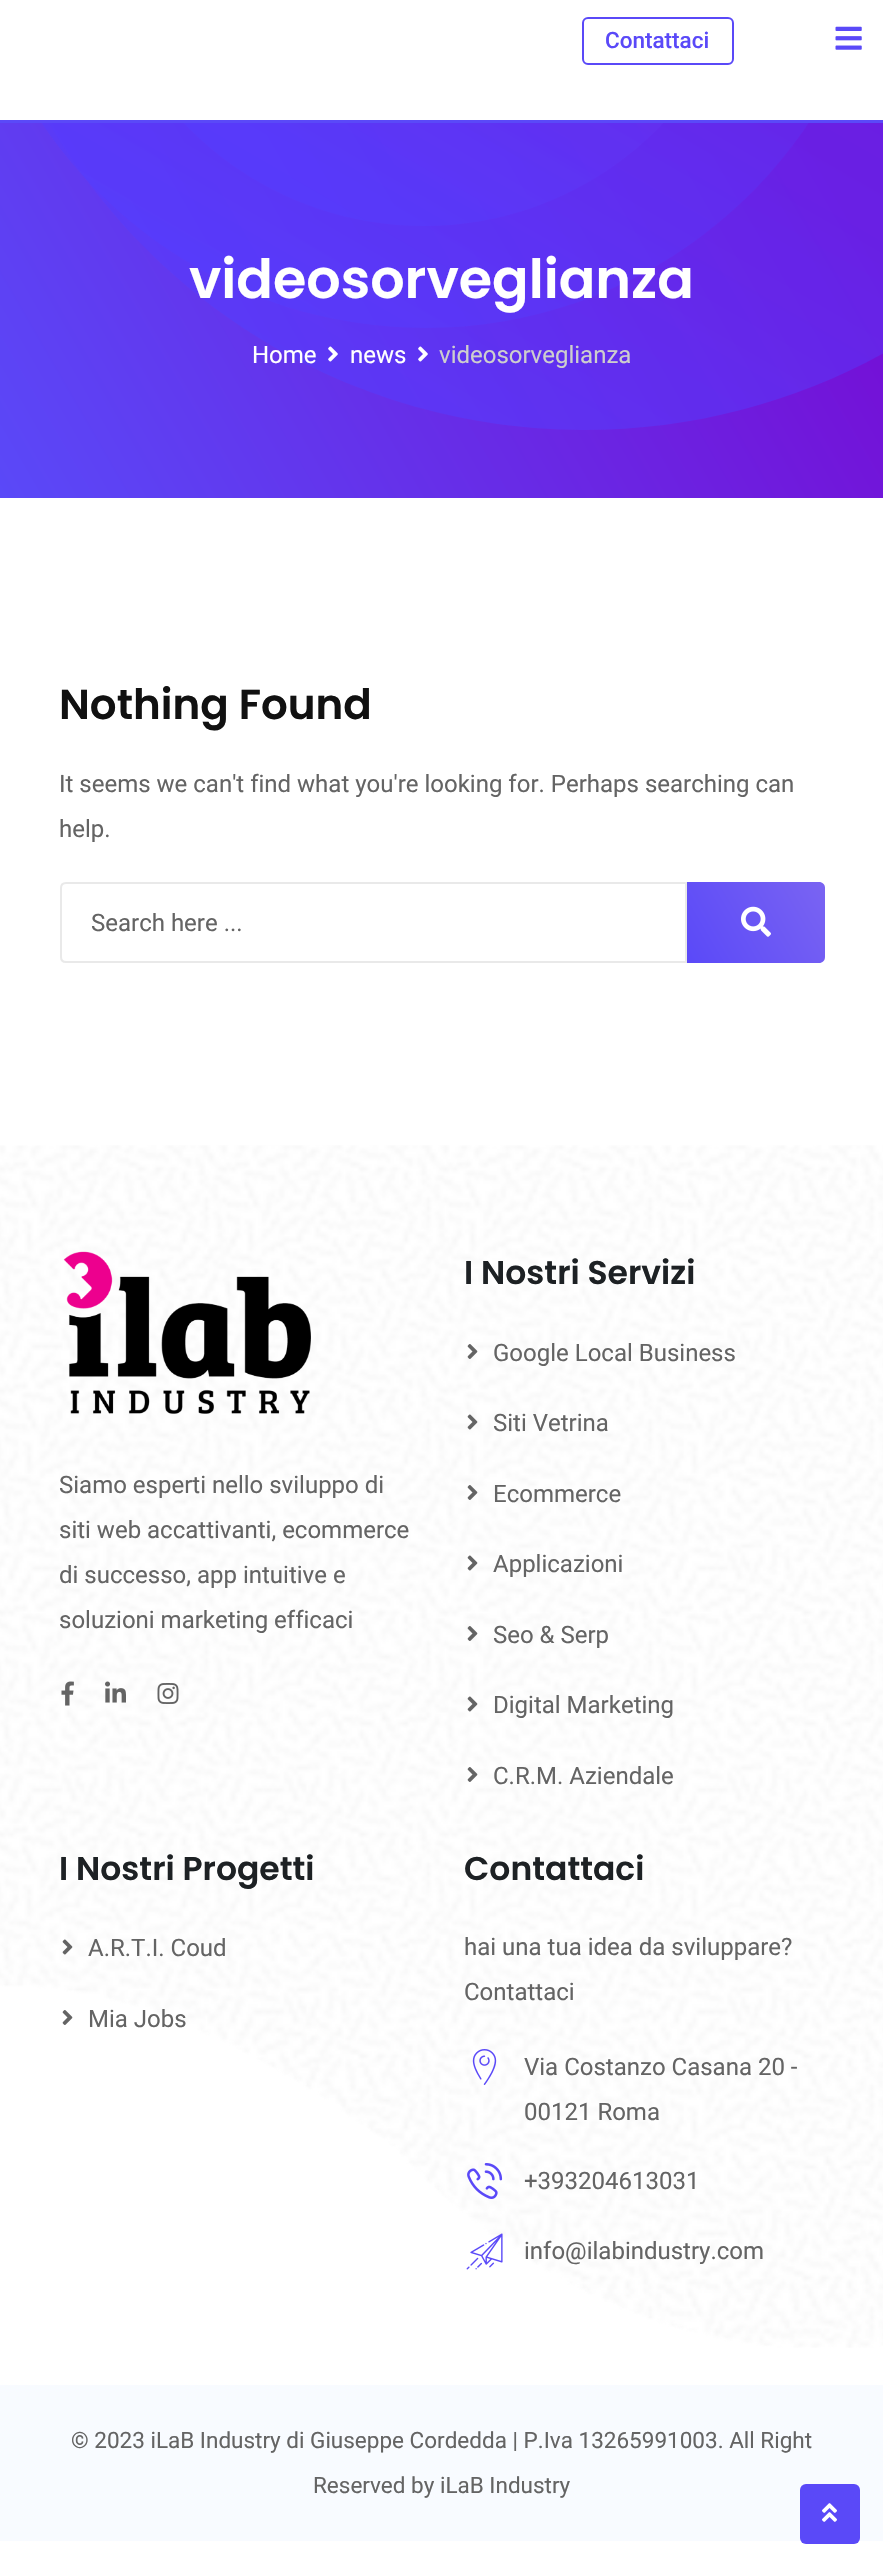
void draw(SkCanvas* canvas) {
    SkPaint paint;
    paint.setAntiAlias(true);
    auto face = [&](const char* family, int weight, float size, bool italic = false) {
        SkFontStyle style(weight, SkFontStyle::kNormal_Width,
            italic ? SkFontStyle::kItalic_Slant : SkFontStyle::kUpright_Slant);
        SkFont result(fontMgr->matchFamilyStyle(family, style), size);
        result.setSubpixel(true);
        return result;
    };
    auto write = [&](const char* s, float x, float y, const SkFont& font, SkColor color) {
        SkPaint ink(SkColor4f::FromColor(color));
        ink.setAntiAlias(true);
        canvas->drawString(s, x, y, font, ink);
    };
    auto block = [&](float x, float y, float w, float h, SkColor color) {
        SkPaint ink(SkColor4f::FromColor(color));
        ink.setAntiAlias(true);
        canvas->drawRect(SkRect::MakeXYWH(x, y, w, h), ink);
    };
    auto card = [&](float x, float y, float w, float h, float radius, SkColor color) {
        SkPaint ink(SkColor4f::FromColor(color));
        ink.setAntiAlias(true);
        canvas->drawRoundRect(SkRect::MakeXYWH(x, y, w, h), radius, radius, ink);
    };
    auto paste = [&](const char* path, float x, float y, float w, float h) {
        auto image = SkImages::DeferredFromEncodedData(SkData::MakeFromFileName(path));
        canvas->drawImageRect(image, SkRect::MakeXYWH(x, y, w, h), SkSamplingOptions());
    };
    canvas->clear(SK_ColorWHITE);
    {
        const SkColor colors[] = {SkColorSetRGB(90, 73, 248), SkColorSetRGB(117, 14, 213)};
        const float stops[] = {0, 0.93f};
        const SkPoint ends[] = {{29, 549}, {854, 72}};
        paint.setShader(SkGradientShader::MakeLinear(ends, colors, stops, 2, SkTileMode::kClamp));
        paint.setAlpha(255);
    }
    canvas->drawRect(SkRect::MakeXYWH(0, 123, 883, 375), paint);
    {
        const SkColor colors[] = {SkColorSetARGB(153, 82, 63, 255), SkColorSetARGB(153, 117, 14, 213)};
        const float stops[] = {0, 1};
        const SkPoint ends[] = {{-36, 264}, {584, -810}};
        paint.setShader(SkGradientShader::MakeLinear(ends, colors, stops, 2, SkTileMode::kClamp));
        paint.setAlpha(255);
    }
    canvas->drawPath(SkPathBuilder().moveTo(584, -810).cubicTo(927, -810, 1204, -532, 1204, -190).cubicTo(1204, 153, 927, 430, 584, 430).cubicTo(242, 430, -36, 153, -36, -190).cubicTo(-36, -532, 242, -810, 584, -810).close().detach(), paint);
    {
        const SkColor colors[] = {SkColorSetARGB(153, 82, 63, 255), SkColorSetARGB(153, 109, 26, 223)};
        const float stops[] = {0, 1};
        const SkPoint ends[] = {{-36, 205}, {425, -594}};
        paint.setShader(SkGradientShader::MakeLinear(ends, colors, stops, 2, SkTileMode::kClamp));
        paint.setAlpha(255);
    }
    canvas->drawPath(SkPathBuilder().moveTo(425, -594).cubicTo(680, -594, 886, -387, 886, -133).cubicTo(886, 122, 680, 328, 425, 328).cubicTo(171, 328, -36, 122, -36, -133).cubicTo(-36, -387, 171, -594, 425, -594).close().detach(), paint);
    {
        const SkColor colors[] = {SkColorSetARGB(102, 82, 63, 255), SkColorSetARGB(102, 130, 33, 221)};
        const float stops[] = {0.13f, 1};
        const SkPoint ends[] = {{93, 138}, {424, -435}};
        paint.setShader(SkGradientShader::MakeLinear(ends, colors, stops, 2, SkTileMode::kClamp));
        paint.setAlpha(255);
    }
    canvas->drawPath(SkPathBuilder().moveTo(424, -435).cubicTo(606, -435, 754, -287, 754, -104).cubicTo(754, 78, 606, 226, 424, 226).cubicTo(241, 226, 93, 78, 93, -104).cubicTo(93, -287, 241, -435, 424, -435).close().detach(), paint);
    block(0, 0, 883, 120, SK_ColorWHITE);
    block(0, 120, 883, 3, SkColorSetRGB(90, 73, 248));
    paint.setStyle(SkPaint::kStroke_Style);
    paint.setStrokeWidth(2);
    paint.setShader(nullptr);
    paint.setColor(SkColorSetRGB(90, 73, 248));
    canvas->drawRoundRect(SkRect::MakeXYWH(583, 18, 150, 46), 5, 5, paint);
    auto kFont1 = face("Roboto", 500, 22.5f);
    write("Contattaci", 605, 48, kFont1, SkColorSetRGB(90, 73, 248));
    paste("pic1.png", 835, 26, 27, 24);
    auto kFont2 = face("Poppins", 600, 54);
    write("videosorveglianza", 189, 298, kFont2, SK_ColorWHITE);
    auto kFont3 = face("Roboto", 400, 24);
    write("Home", 252, 363, kFont3, SK_ColorWHITE);
    paste("pic2.png", 328, 346, 10, 16);
    write("news", 350, 363, kFont3, SK_ColorWHITE);
    paste("pic3.png", 418, 346, 10, 16);
    write("videosorveglianza", 439, 363, kFont3, SkColorSetRGB(206, 206, 206));
    auto kFont4 = face("Poppins", 600, 42);
    write("Nothing Found", 59, 719, kFont4, SkColorSetRGB(17, 17, 17));
    write("It seems we can't find what you're looking for. Perhaps searching can", 59, 792, kFont3, SkColorSetRGB(100, 100, 100));
    write("help.", 59, 837, kFont3, SkColorSetRGB(100, 100, 100));
    paint.setColor(SkColorSetRGB(233, 233, 233));
    canvas->drawPath(SkPathBuilder().moveTo(66, 883).lineTo(686, 883).lineTo(686, 962).lineTo(66, 962).cubicTo(63, 962, 61, 960, 61, 957).lineTo(61, 888).cubicTo(61, 885, 63, 883, 66, 883).close().detach(), paint);
    write("Search here ...", 91, 931, kFont3, SkColorSetRGB(100, 100, 100));
    paint.setStyle(SkPaint::kFill_Style);
    {
        const SkColor colors[] = {SkColorSetRGB(90, 73, 248), SkColorSetRGB(122, 100, 242)};
        const float stops[] = {0, 1};
        const SkPoint ends[] = {{687, 963}, {825, 882}};
        paint.setShader(SkGradientShader::MakeLinear(ends, colors, stops, 2, SkTileMode::kClamp));
        paint.setAlpha(255);
    }
    canvas->drawPath(SkPathBuilder().moveTo(687, 882).lineTo(819, 882).cubicTo(822.5f, 882, 825, 884.5f, 825, 888).lineTo(825, 957).cubicTo(825, 960.5f, 822.5f, 963, 819, 963).lineTo(687, 963).close().detach(), paint);
    paste("pic4.png", 741, 906, 30, 31);
    paste("pic5.png", 0, 1145, 883, 1203);
    paste("pic6.png", 63, 1251, 248, 163);
    write("Siamo esperti nello sviluppo di", 59, 1493, kFont3, SkColorSetRGB(100, 100, 100));
    write("siti web accattivanti, ecommerce", 59, 1538, kFont3, SkColorSetRGB(100, 100, 100));
    write("di successo, app intuitive e", 59, 1583, kFont3, SkColorSetRGB(100, 100, 100));
    write("soluzioni marketing efficaci", 59, 1628, kFont3, SkColorSetRGB(100, 100, 100));
    paste("pic7.png", 61, 1681, 13, 25);
    paste("pic8.png", 105, 1681, 21, 22);
    paste("pic9.png", 157, 1683, 22, 21);
    auto kFont5 = face("Poppins", 600, 33);
    write("I Nostri Servizi", 464, 1284, kFont5, SkColorSetRGB(29, 33, 36));
    paste("pic10.png", 467, 1344, 11, 15);
    write("Google Local Business", 493, 1361, kFont3, SkColorSetRGB(100, 100, 100));
    paste("pic11.png", 467, 1414, 11, 16);
    write("Siti Vetrina", 493, 1431, kFont3, SkColorSetRGB(100, 100, 100));
    paste("pic12.png", 467, 1485, 11, 15);
    write("Ecommerce", 493, 1502, kFont3, SkColorSetRGB(100, 100, 100));
    paste("pic13.png", 467, 1555, 11, 16);
    write("Applicazioni", 493, 1572, kFont3, SkColorSetRGB(100, 100, 100));
    paste("pic14.png", 467, 1626, 11, 15);
    write("Seo & Serp", 493, 1643, kFont3, SkColorSetRGB(100, 100, 100));
    paste("pic15.png", 467, 1696, 11, 16);
    write("Digital Marketing", 493, 1713, kFont3, SkColorSetRGB(100, 100, 100));
    paste("pic16.png", 467, 1767, 11, 15);
    write("C.R.M. Aziendale", 493, 1784, kFont3, SkColorSetRGB(100, 100, 100));
    write("I Nostri Progetti", 59, 1880, kFont5, SkColorSetRGB(29, 33, 36));
    paste("pic17.png", 62, 1939, 11, 16);
    write("A.R.T.I. Coud", 88, 1956, kFont3, SkColorSetRGB(100, 100, 100));
    paste("pic18.png", 62, 2010, 11, 15);
    write("Mia Jobs", 88, 2027, kFont3, SkColorSetRGB(100, 100, 100));
    write("Contattaci", 464, 1880, kFont5, SkColorSetRGB(29, 33, 36));
    write("hai una tua idea da sviluppare?", 464, 1955, kFont3, SkColorSetRGB(100, 100, 100));
    write("Contattaci", 464, 2000, kFont3, SkColorSetRGB(100, 100, 100));
    paste("pic19.png", 472, 2049, 25, 36);
    write("Via Costanzo Casana 20 -", 524, 2075, kFont3, SkColorSetRGB(100, 100, 100));
    write("00121 Roma", 524, 2120, kFont3, SkColorSetRGB(100, 100, 100));
    paste("pic20.png", 467, 2163, 36, 36);
    write("+393204613031", 524, 2189, kFont3, SkColorSetRGB(100, 100, 100));
    paste("pic21.png", 466, 2233, 37, 37);
    write("info@ilabindustry.com", 524, 2259, kFont3, SkColorSetRGB(100, 100, 100));
    block(0, 2385, 883, 156, SkColorSetRGB(248, 251, 255));
    auto kFont6 = face("Roboto", 400, 22.5f);
    write("© 2023 iLaB Industry di Giuseppe Cordedda | P.Iva 13265991003. All Right", 71, 2448, kFont6, SkColorSetRGB(100, 100, 100));
    write("Reserved by iLaB Industry", 313, 2493, kFont6, SkColorSetRGB(100, 100, 100));
    card(800, 2484, 60, 60, 6, SkColorSetRGB(90, 73, 248));
    paste("pic22.png", 822, 2503, 15, 19);
}
